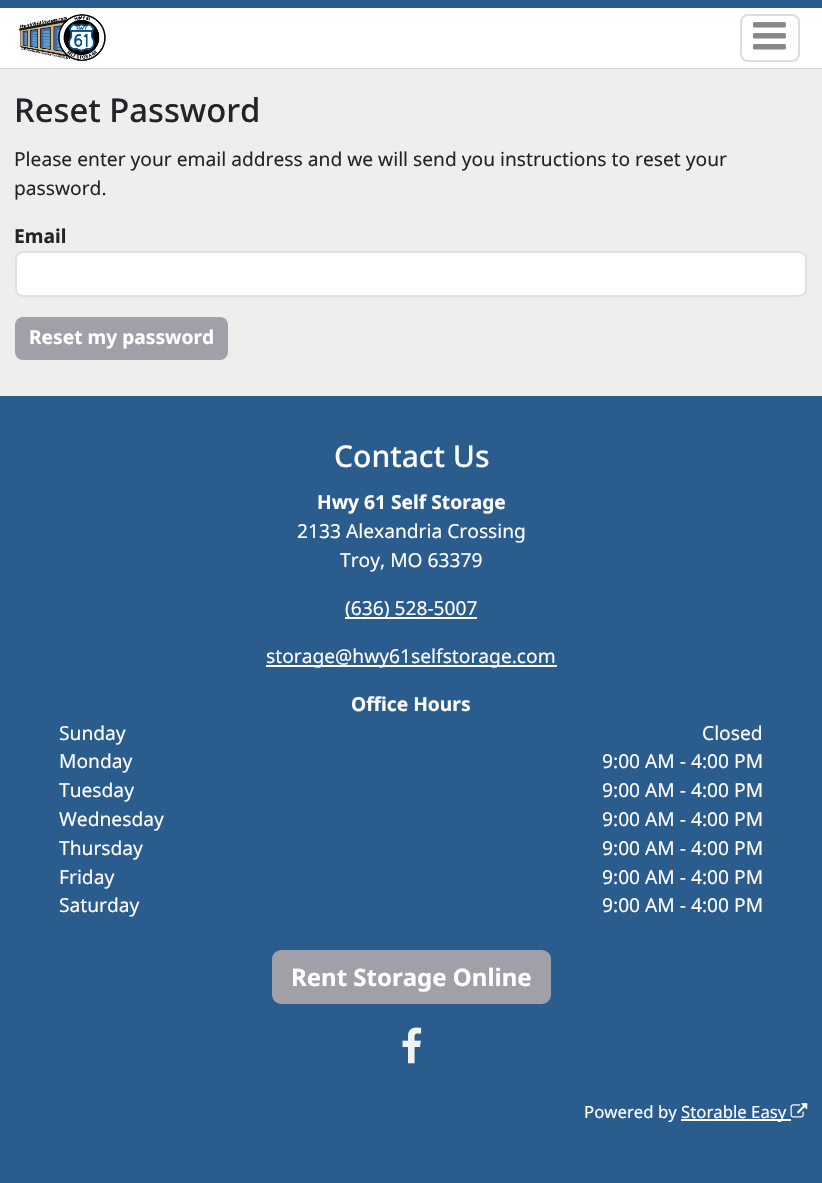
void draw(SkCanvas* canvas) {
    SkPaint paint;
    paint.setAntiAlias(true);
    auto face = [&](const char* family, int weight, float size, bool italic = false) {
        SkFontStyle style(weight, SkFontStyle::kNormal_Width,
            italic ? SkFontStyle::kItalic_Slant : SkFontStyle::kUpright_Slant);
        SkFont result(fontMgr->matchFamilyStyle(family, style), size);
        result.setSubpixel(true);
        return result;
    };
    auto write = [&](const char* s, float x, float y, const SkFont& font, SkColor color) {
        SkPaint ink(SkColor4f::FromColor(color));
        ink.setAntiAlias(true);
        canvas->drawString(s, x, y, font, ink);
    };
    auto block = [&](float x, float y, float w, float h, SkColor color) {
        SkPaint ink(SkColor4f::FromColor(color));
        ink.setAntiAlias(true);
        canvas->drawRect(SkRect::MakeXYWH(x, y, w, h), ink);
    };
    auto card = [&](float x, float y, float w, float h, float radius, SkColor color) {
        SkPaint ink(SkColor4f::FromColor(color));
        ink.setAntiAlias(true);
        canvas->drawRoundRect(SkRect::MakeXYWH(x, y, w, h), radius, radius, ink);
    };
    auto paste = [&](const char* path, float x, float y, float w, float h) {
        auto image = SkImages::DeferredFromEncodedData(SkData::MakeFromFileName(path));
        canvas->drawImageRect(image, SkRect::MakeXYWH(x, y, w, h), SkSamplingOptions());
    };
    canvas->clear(SkColorSetRGB(238, 238, 238));
    block(0, 68, 822, 1, SkColorSetRGB(214, 214, 214));
    block(0, 8, 822, 60, SK_ColorWHITE);
    block(0, 0, 822, 8, SkColorSetRGB(43, 92, 142));
    paste("pic1.png", 19, 14, 87, 47);
    paint.setStyle(SkPaint::kStroke_Style);
    paint.setStrokeWidth(2);
    paint.setColor(SkColorSetRGB(221, 221, 221));
    canvas->drawRoundRect(SkRect::MakeXYWH(741, 15, 58, 46), 7, 7, paint);
    paste("pic2.png", 753, 22, 33, 28);
    auto kFont1 = face("Noto Sans", 500, 32.75f);
    write("Reset Password", 14, 122, kFont1, SkColorSetRGB(33, 37, 41));
    auto kFont2 = face("Noto Sans", 400, 19.2f);
    write("Please enter your email address and we will send you instructions to reset your", 14, 166, kFont2, SkColorSetRGB(33, 37, 41));
    write("password.", 14, 195, kFont2, SkColorSetRGB(33, 37, 41));
    auto kFont3 = face("Noto Sans", 700, 19.2f);
    write("Email", 14, 243, kFont3, SkColorSetRGB(33, 37, 41));
    paint.setStyle(SkPaint::kFill_Style);
    paint.setColor(SK_ColorWHITE);
    canvas->drawRoundRect(SkRect::MakeXYWH(16, 252, 790, 44), 7, 7, paint);
    paint.setStyle(SkPaint::kStroke_Style);
    paint.setColor(SkColorSetRGB(222, 226, 230));
    canvas->drawRoundRect(SkRect::MakeXYWH(16, 252, 790, 44), 7, 7, paint);
    card(15, 317, 213, 43, 8, SkColorSetRGB(160, 160, 168));
    write("Reset my password", 29, 344, kFont3, SK_ColorWHITE);
    block(0, 396, 822, 787, SkColorSetRGB(43, 92, 142));
    auto kFont4 = face("Noto Sans", 500, 30);
    write("Contact Us", 334, 467, kFont4, SK_ColorWHITE);
    write("Hwy 61 Self Storage", 317, 509, kFont3, SK_ColorWHITE);
    write("2133 Alexandria Crossing", 297, 538, kFont2, SK_ColorWHITE);
    write("Troy, MO 63379", 340, 567, kFont2, SK_ColorWHITE);
    block(345, 617, 132, 2, SK_ColorWHITE);
    write("(636) 528-5007", 345, 615, kFont2, SK_ColorWHITE);
    block(266, 665, 291, 2, SK_ColorWHITE);
    write("storage@hwy61selfstorage.com", 266, 663, kFont2, SK_ColorWHITE);
    write("Office Hours", 351, 711, kFont3, SK_ColorWHITE);
    write("Sunday", 59, 740, kFont2, SK_ColorWHITE);
    write("Closed", 702, 740, kFont2, SK_ColorWHITE);
    write("Monday", 59, 768, kFont2, SK_ColorWHITE);
    write("9:00 AM - 4:00 PM", 602, 768, kFont2, SK_ColorWHITE);
    write("Tuesday", 59, 797, kFont2, SK_ColorWHITE);
    write("9:00 AM - 4:00 PM", 602, 797, kFont2, SK_ColorWHITE);
    write("Wednesday", 59, 826, kFont2, SK_ColorWHITE);
    write("9:00 AM - 4:00 PM", 602, 826, kFont2, SK_ColorWHITE);
    write("Thursday", 59, 855, kFont2, SK_ColorWHITE);
    write("9:00 AM - 4:00 PM", 602, 855, kFont2, SK_ColorWHITE);
    write("Friday", 59, 884, kFont2, SK_ColorWHITE);
    write("9:00 AM - 4:00 PM", 602, 884, kFont2, SK_ColorWHITE);
    write("Saturday", 59, 912, kFont2, SK_ColorWHITE);
    write("9:00 AM - 4:00 PM", 602, 912, kFont2, SK_ColorWHITE);
    card(272, 950, 279, 54, 9, SkColorSetRGB(160, 160, 168));
    auto kFont5 = face("Noto Sans", 700, 24);
    write("Rent Storage Online", 291, 986, kFont5, SK_ColorWHITE);
    paste("pic3.png", 402, 1027, 20, 37);
    auto kFont6 = face("Noto Sans", 400, 16.75f);
    write("Powered by", 584, 1118, kFont6, SK_ColorWHITE);
    block(681, 1119, 110, 2, SK_ColorWHITE);
    write("Storable Easy", 681, 1118, kFont6, SK_ColorWHITE);
    paste("pic4.png", 790, 1103, 18, 15);
}
